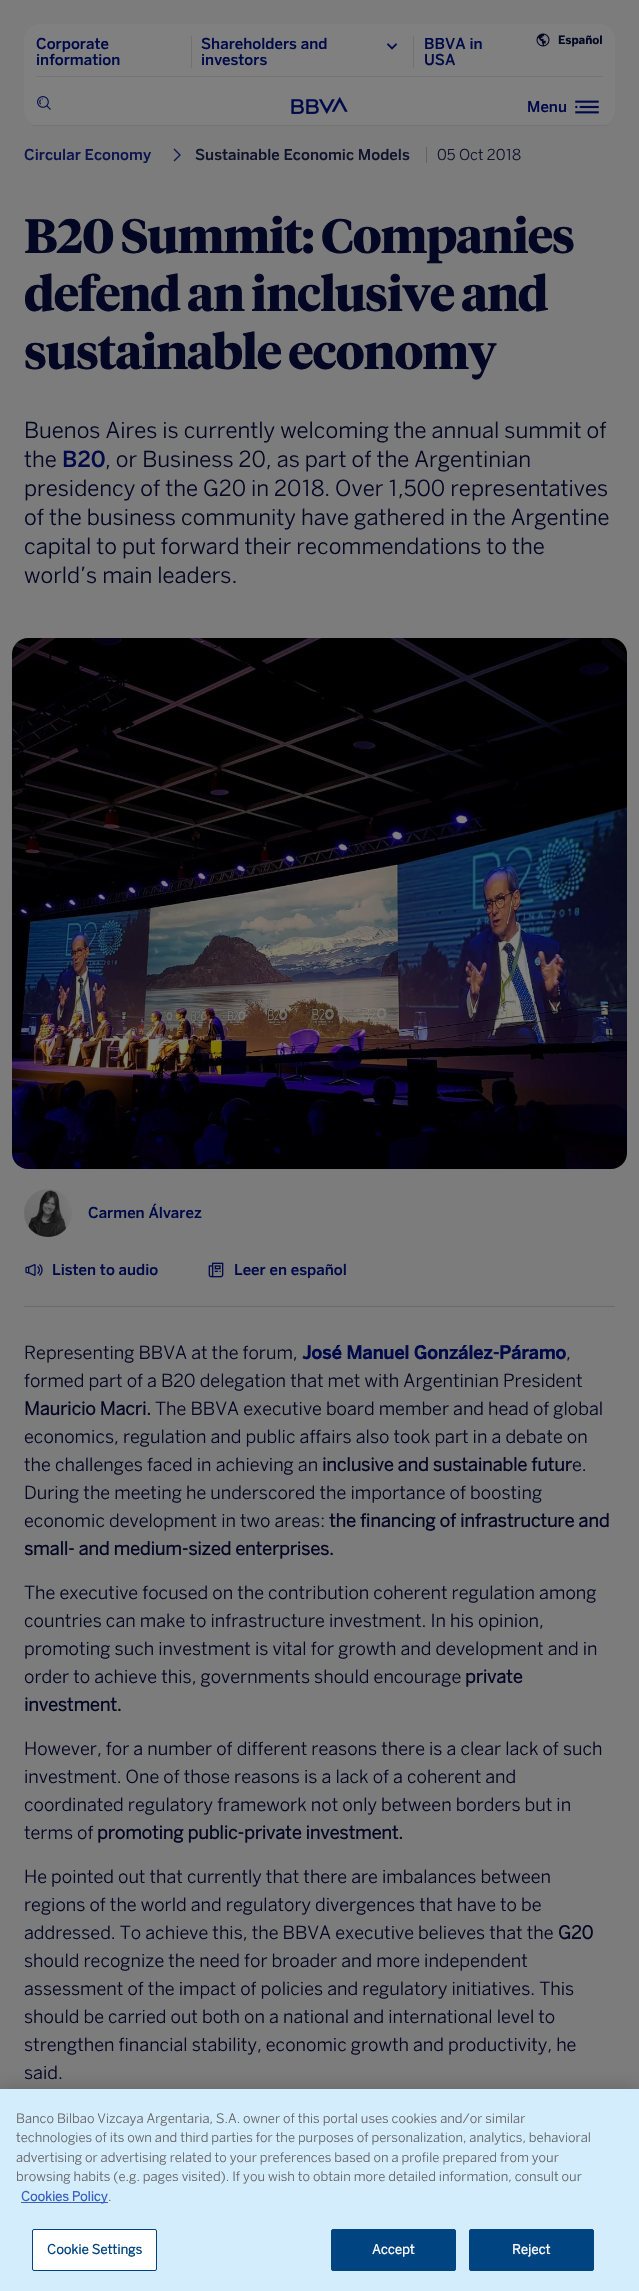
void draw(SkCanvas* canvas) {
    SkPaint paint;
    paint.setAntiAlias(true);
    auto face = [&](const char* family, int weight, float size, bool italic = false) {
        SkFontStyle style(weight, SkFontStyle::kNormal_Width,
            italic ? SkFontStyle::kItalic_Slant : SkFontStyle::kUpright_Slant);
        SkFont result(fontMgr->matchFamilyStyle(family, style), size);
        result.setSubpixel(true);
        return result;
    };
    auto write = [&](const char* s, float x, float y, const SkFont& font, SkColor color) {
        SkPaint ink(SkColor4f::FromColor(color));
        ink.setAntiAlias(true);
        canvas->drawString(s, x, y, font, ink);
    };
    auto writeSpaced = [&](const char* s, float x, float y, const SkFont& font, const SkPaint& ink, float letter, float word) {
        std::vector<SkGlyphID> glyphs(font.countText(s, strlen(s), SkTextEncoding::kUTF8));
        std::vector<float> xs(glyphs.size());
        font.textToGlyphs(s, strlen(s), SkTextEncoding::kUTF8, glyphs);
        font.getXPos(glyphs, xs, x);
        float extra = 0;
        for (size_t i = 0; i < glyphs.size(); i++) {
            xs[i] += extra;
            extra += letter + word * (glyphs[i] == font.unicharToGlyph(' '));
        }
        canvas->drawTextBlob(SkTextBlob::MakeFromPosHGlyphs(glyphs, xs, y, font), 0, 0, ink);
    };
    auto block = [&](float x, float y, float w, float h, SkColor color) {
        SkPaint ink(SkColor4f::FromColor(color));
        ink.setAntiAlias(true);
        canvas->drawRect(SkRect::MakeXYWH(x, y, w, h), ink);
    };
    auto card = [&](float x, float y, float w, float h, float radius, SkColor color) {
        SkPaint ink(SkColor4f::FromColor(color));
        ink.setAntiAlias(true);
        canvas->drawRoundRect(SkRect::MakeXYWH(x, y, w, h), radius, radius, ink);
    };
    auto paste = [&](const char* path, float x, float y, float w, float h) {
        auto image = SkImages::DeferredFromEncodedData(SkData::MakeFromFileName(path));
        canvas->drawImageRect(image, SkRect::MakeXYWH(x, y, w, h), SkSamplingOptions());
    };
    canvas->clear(SkColorSetRGB(124, 124, 124));
    card(24, 24, 591, 102, 16, SkColorSetRGB(128, 128, 128));
    block(32, 125, 575, 1, SkColorSetRGB(117, 117, 117));
    block(36, 76, 567, 1, SkColorSetRGB(117, 117, 117));
    block(191, 36, 1, 32, SkColorSetRGB(113, 113, 113));
    auto kFont1 = face("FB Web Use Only", 500, 15);
    write("Corporate", 36, 49, kFont1, SkColorSetRGB(0, 10, 73));
    write("information", 36, 65, kFont1, SkColorSetRGB(0, 10, 73));
    block(413, 36, 1, 32, SkColorSetRGB(113, 113, 113));
    write("Shareholders and", 201, 49, kFont1, SkColorSetRGB(0, 10, 73));
    write("investors", 201, 65, kFont1, SkColorSetRGB(0, 10, 73));
    paste("pic1.png", 386, 43, 12, 7);
    write("BBVA in", 424, 49, kFont1, SkColorSetRGB(0, 10, 73));
    write("USA", 424, 65, kFont1, SkColorSetRGB(0, 10, 73));
    paste("pic2.png", 536, 33, 14, 14);
    auto kFont2 = face("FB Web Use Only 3", 700, 11.5f);
    write("Español", 558, 44, kFont2, SkColorSetRGB(4, 7, 35));
    paste("pic3.png", 291, 97, 57, 17);
    paste("pic4.png", 37, 96, 14, 14);
    write("Menu", 527, 112, kFont1, SkColorSetRGB(0, 10, 73));
    paste("pic5.png", 575, 100, 24, 14);
    write("Circular Economy", 24, 160, kFont1, SkColorSetRGB(13, 21, 78));
    paste("pic6.png", 173, 148, 8, 14);
    write("Sustainable Economic Models", 195, 160, kFont1, SkColorSetRGB(16, 19, 44));
    block(426, 147, 1, 16, SkColorSetRGB(98, 98, 98));
    auto kFont3 = face("FB Web Use Only", 300, 15);
    write("05 Oct 2018", 437, 160, kFont3, SkColorSetRGB(16, 19, 44));
    auto kFont4 = face("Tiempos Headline", 700, 48);
    paint.setColor(SkColorSetRGB(4, 7, 35));
    writeSpaced("B20 Summit: Companies", 24, 253, kFont4, paint, -1, 0);
    writeSpaced("defend an inclusive and", 24, 311, kFont4, paint, -1, 0);
    writeSpaced("sustainable economy", 24, 369, kFont4, paint, -1, 0);
    auto kFont5 = face("FB Web Use Only", 300, 22);
    write("Buenos Aires is currently welcoming the annual summit of", 24, 438, kFont5, SkColorSetRGB(4, 7, 35));
    write("the", 24, 467, kFont5, SkColorSetRGB(4, 7, 35));
    auto kFont6 = face("FB Web Use Only", 500, 22);
    write("B20", 62, 467, kFont6, SkColorSetRGB(0, 10, 73));
    write(", or Business 20, as part of the Argentinian", 105, 467, kFont5, SkColorSetRGB(4, 7, 35));
    write("presidency of the G20 in 2018. Over 1,500 representatives", 24, 496, kFont5, SkColorSetRGB(4, 7, 35));
    write("of the business community have gathered in the Argentine", 24, 525, kFont5, SkColorSetRGB(4, 7, 35));
    write("capital to put forward their recommendations to the", 24, 554, kFont5, SkColorSetRGB(4, 7, 35));
    write("world’s main leaders.", 24, 583, kFont5, SkColorSetRGB(4, 7, 35));
    paste("pic7.png", 12, 638, 615, 531);
    paste("pic8.png", 24, 1189, 48, 48);
    write("Carmen Álvarez", 88, 1218, kFont1, SkColorSetRGB(0, 10, 73));
    block(24, 1306, 591, 1, SkColorSetRGB(106, 106, 106));
    paste("pic9.png", 25, 1264, 18, 12);
    write("Listen to audio", 52, 1275, kFont1, SkColorSetRGB(0, 10, 73));
    paste("pic10.png", 208, 1262, 16, 16);
    write("Leer en español", 234, 1275, kFont1, SkColorSetRGB(0, 10, 73));
    auto kFont7 = face("FB Web Use Only", 300, 18);
    write("Representing BBVA at the forum,", 24, 1359, kFont7, SkColorSetRGB(4, 7, 35));
    auto kFont8 = face("FB Web Use Only", 700, 18);
    write("José Manuel González-Páramo", 302, 1359, kFont8, SkColorSetRGB(0, 10, 73));
    write(",", 566, 1359, kFont7, SkColorSetRGB(4, 7, 35));
    write("formed part of a B20 delegation that met with Argentinian President", 24, 1387, kFont7, SkColorSetRGB(4, 7, 35));
    auto kFont9 = face("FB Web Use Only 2", 700, 18);
    write("Mauricio Macri.", 24, 1415, kFont9, SkColorSetRGB(4, 7, 35));
    write("The BBVA executive board member and head of global", 155, 1415, kFont7, SkColorSetRGB(4, 7, 35));
    write("economics, regulation and public affairs also took part in a debate on", 24, 1443, kFont7, SkColorSetRGB(4, 7, 35));
    write("the challenges faced in achieving an", 24, 1471, kFont7, SkColorSetRGB(4, 7, 35));
    write("inclusive and sustainable futur", 322, 1471, kFont9, SkColorSetRGB(4, 7, 35));
    write("e.", 572, 1471, kFont7, SkColorSetRGB(4, 7, 35));
    write("During the meeting he underscored the importance of boosting", 24, 1499, kFont7, SkColorSetRGB(4, 7, 35));
    write("economic development in two areas:", 24, 1527, kFont7, SkColorSetRGB(4, 7, 35));
    write("the financing of infrastructure and", 329, 1527, kFont9, SkColorSetRGB(4, 7, 35));
    write("small- and medium-sized enterprises.", 24, 1555, kFont9, SkColorSetRGB(4, 7, 35));
    write("The executive focused on the contribution coherent regulation among", 24, 1599, kFont7, SkColorSetRGB(4, 7, 35));
    write("countries can make to infrastructure investment. In his opinion,", 24, 1627, kFont7, SkColorSetRGB(4, 7, 35));
    write("promoting such investment is vital for growth and development and in", 24, 1655, kFont7, SkColorSetRGB(4, 7, 35));
    write("order to achieve this, governments should encourage", 24, 1683, kFont7, SkColorSetRGB(4, 7, 35));
    write("private", 465, 1683, kFont9, SkColorSetRGB(4, 7, 35));
    write("investment.", 24, 1711, kFont9, SkColorSetRGB(4, 7, 35));
    write("However, for a number of different reasons there is a clear lack of such", 24, 1755, kFont7, SkColorSetRGB(4, 7, 35));
    write("investment. One of those reasons is a lack of a coherent and", 24, 1783, kFont7, SkColorSetRGB(4, 7, 35));
    write("coordinated regulatory framework not only between borders but in", 24, 1811, kFont7, SkColorSetRGB(4, 7, 35));
    write("terms of", 24, 1839, kFont7, SkColorSetRGB(4, 7, 35));
    write("promoting public-private investment.", 97, 1839, kFont9, SkColorSetRGB(4, 7, 35));
    write("He pointed out that currently that there are imbalances between", 24, 1883, kFont7, SkColorSetRGB(4, 7, 35));
    write("regions of the world and regulatory divergences that have to be", 24, 1911, kFont7, SkColorSetRGB(4, 7, 35));
    write("addressed. To achieve this, the BBVA executive believes that the", 24, 1939, kFont7, SkColorSetRGB(4, 7, 35));
    write("G20", 558, 1939, kFont9, SkColorSetRGB(4, 7, 35));
    write("should recognize the need for broader and more independent", 24, 1967, kFont7, SkColorSetRGB(4, 7, 35));
    write("assessment of the impact of policies and regulatory initiatives. This", 24, 1995, kFont7, SkColorSetRGB(4, 7, 35));
    write("should be carried out both on a national and international level to", 24, 2023, kFont7, SkColorSetRGB(4, 7, 35));
    write("strengthen financial stability, economic growth and productivity, he", 24, 2051, kFont7, SkColorSetRGB(4, 7, 35));
    write("said.", 24, 2079, kFont7, SkColorSetRGB(4, 7, 35));
    paint.setColor(SkColorSetARGB(51, 0, 0, 0));
    paint.setMaskFilter(SkMaskFilter::MakeBlur(kNormal_SkBlurStyle, 9));
    canvas->drawRect(SkRect::MakeXYWH(0, 2089, 639, 202), paint);
    paint.setMaskFilter(nullptr);
    block(0, 2089, 639, 202, SkColorSetRGB(212, 237, 252));
    auto kFont10 = face("FB Web Use Only", 300, 13);
    write("Banco Bilbao Vizcaya Argentaria, S.A. owner of this portal uses cookies and/or similar", 16, 2123, kFont10, SkColorSetRGB(102, 102, 102));
    write("technologies of its own and third parties for the purposes of personalization, analytics, behavioral", 16, 2142, kFont10, SkColorSetRGB(102, 102, 102));
    write("advertising or advertising related to your preferences based on a profile prepared from your", 16, 2162, kFont10, SkColorSetRGB(102, 102, 102));
    write("browsing habits (e.g. pages visited). If you wish to obtain more detailed information, consult our", 16, 2181, kFont10, SkColorSetRGB(102, 102, 102));
    block(21, 2202, 87, 1, SkColorSetRGB(56, 96, 190));
    auto kFont11 = face("FB Web Use Only 2", 700, 13);
    write("Cookies Policy", 21, 2201, kFont11, SkColorSetRGB(56, 96, 190));
    write(".", 108, 2201, kFont10, SkColorSetRGB(102, 102, 102));
    paint.setColor(SK_ColorWHITE);
    canvas->drawRoundRect(SkRect::MakeXYWH(32.5f, 2229.5f, 124, 41), 1.5f, 1.5f, paint);
    paint.setStyle(SkPaint::kStroke_Style);
    paint.setStrokeWidth(1);
    paint.setColor(SkColorSetRGB(0, 68, 129));
    canvas->drawRoundRect(SkRect::MakeXYWH(32.5f, 2229.5f, 124, 41), 1.5f, 1.5f, paint);
    paint.setStyle(SkPaint::kFill_Style);
    writeSpaced("Cookie Settings", 47, 2254, kFont11, paint, 0.1f, 0);
    canvas->drawRoundRect(SkRect::MakeXYWH(331.5f, 2229.5f, 124, 41), 1.5f, 1.5f, paint);
    paint.setStyle(SkPaint::kStroke_Style);
    canvas->drawRoundRect(SkRect::MakeXYWH(331.5f, 2229.5f, 124, 41), 1.5f, 1.5f, paint);
    paint.setStyle(SkPaint::kFill_Style);
    paint.setColor(SK_ColorWHITE);
    writeSpaced("Accept", 372, 2254, kFont11, paint, 0.1f, 0);
    paint.setColor(SkColorSetRGB(0, 68, 129));
    canvas->drawRoundRect(SkRect::MakeXYWH(469.5f, 2229.5f, 124, 41), 1.5f, 1.5f, paint);
    paint.setStyle(SkPaint::kStroke_Style);
    canvas->drawRoundRect(SkRect::MakeXYWH(469.5f, 2229.5f, 124, 41), 1.5f, 1.5f, paint);
    paint.setStyle(SkPaint::kFill_Style);
    paint.setColor(SK_ColorWHITE);
    writeSpaced("Reject", 512, 2254, kFont11, paint, 0.1f, 0);
}
